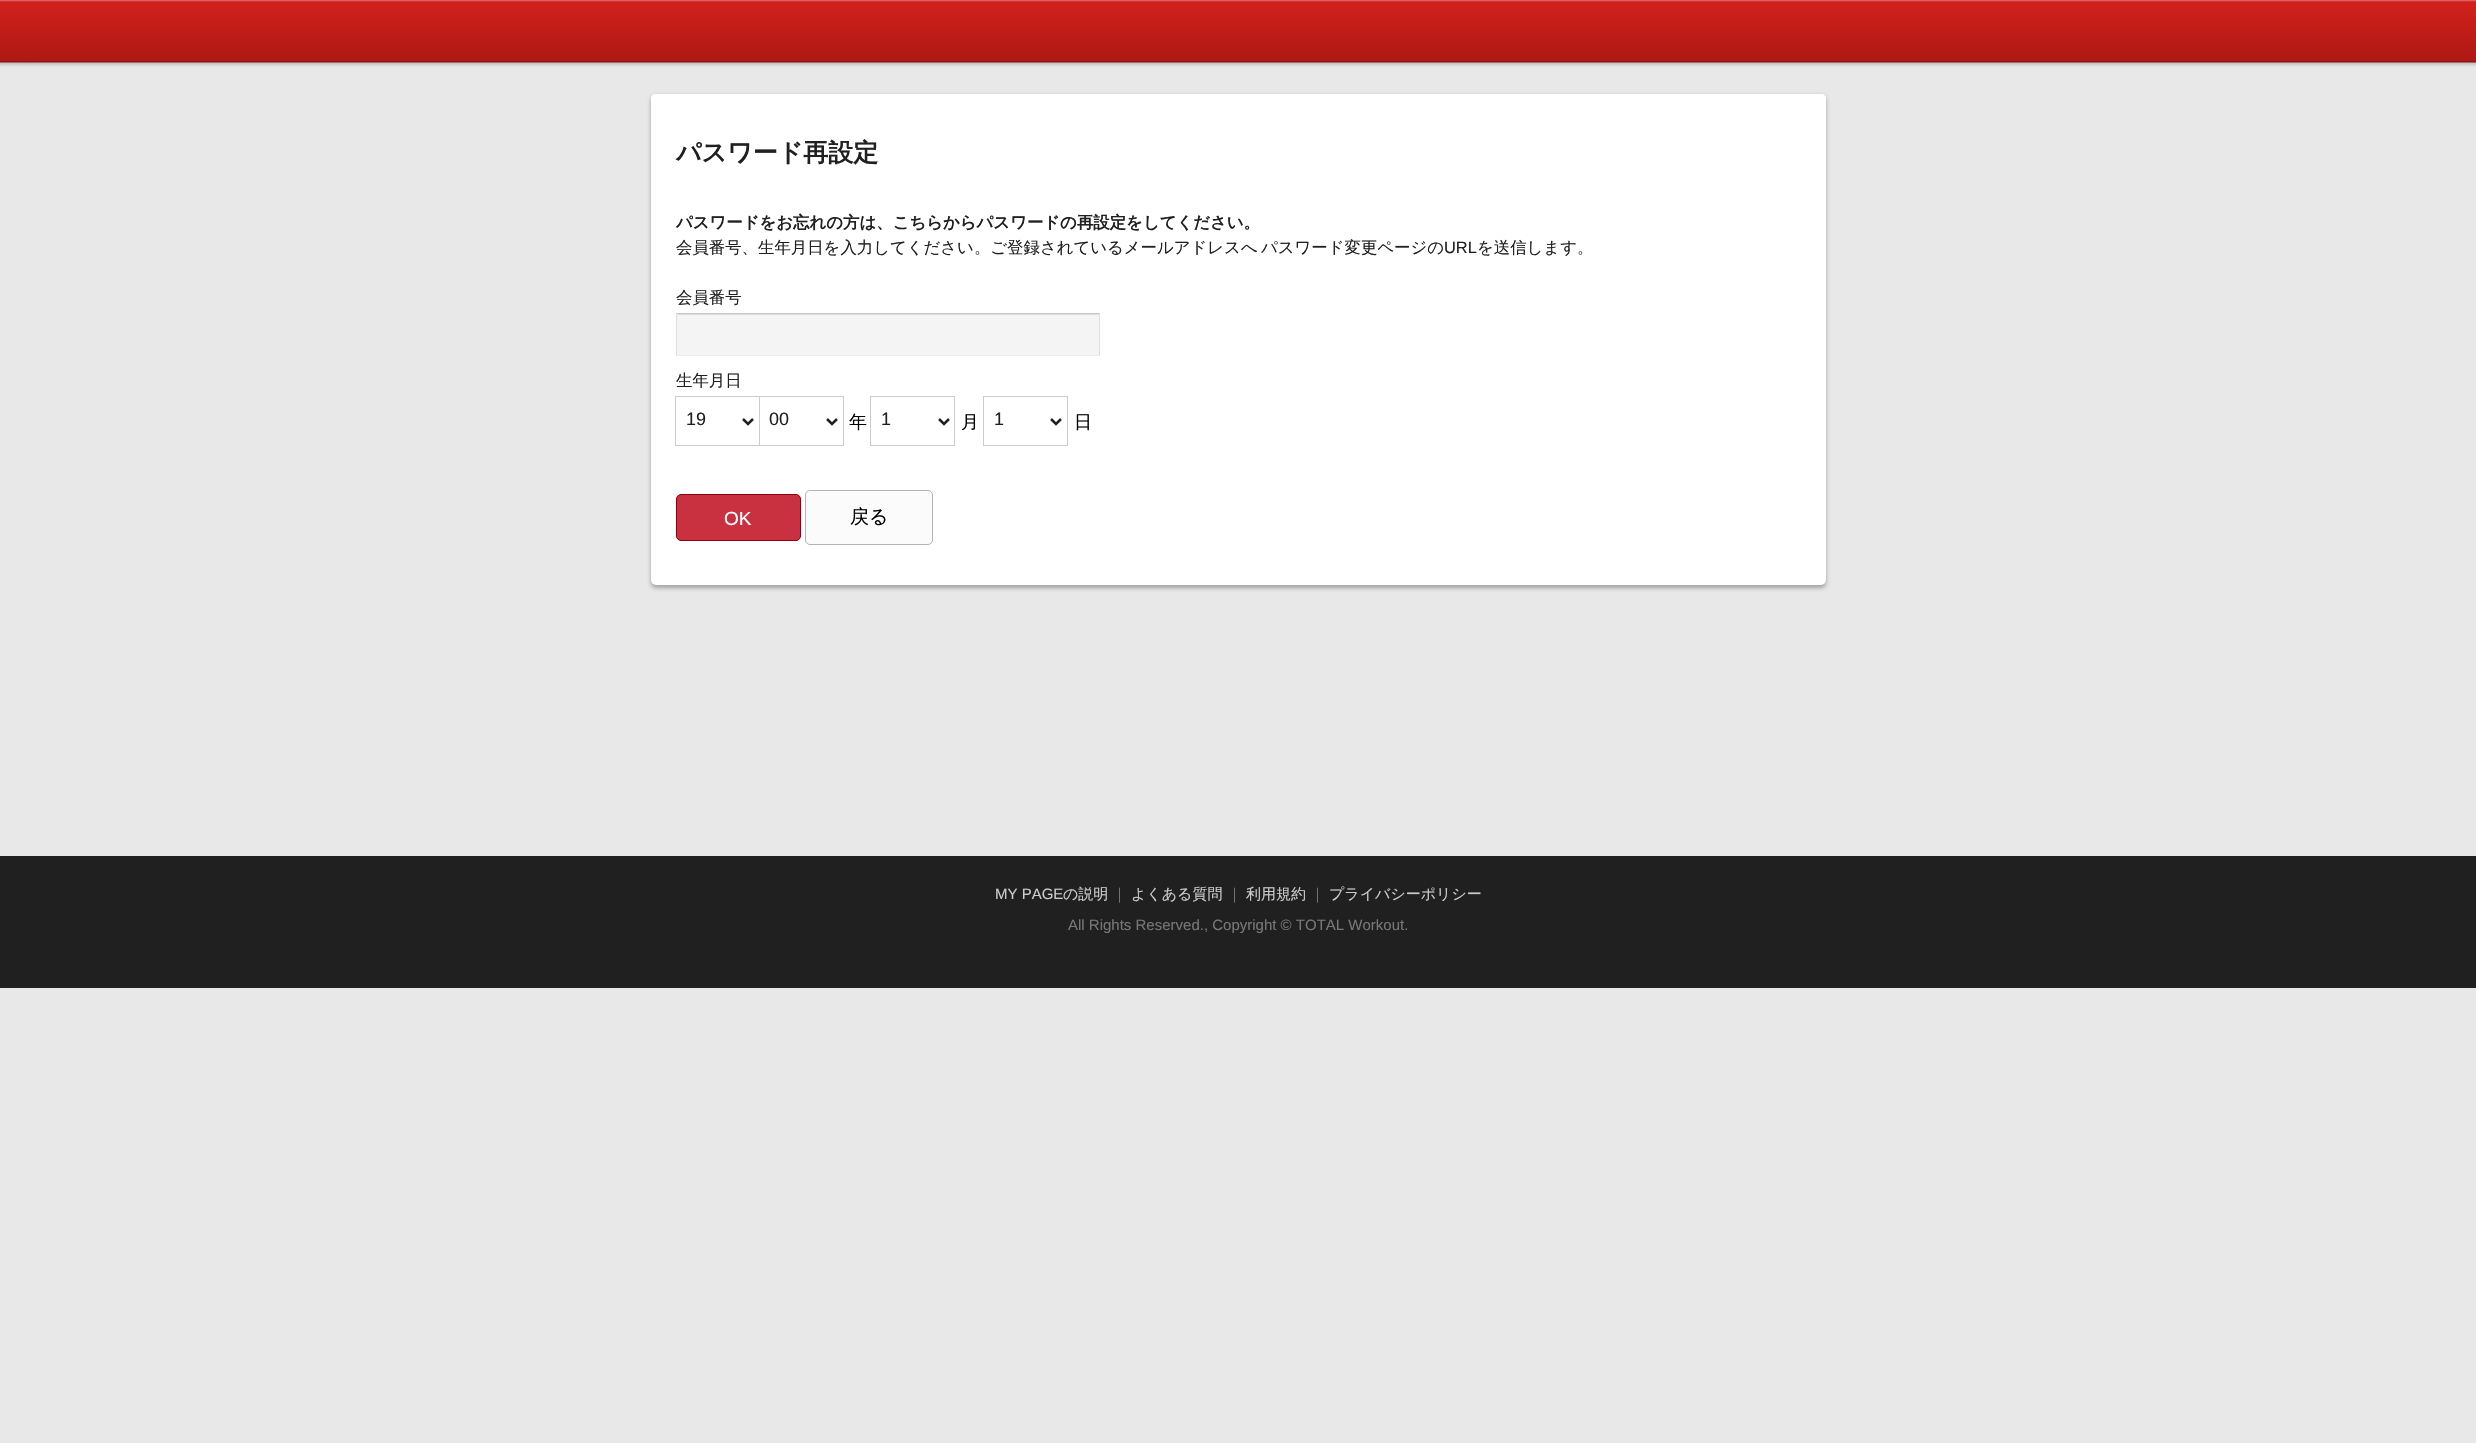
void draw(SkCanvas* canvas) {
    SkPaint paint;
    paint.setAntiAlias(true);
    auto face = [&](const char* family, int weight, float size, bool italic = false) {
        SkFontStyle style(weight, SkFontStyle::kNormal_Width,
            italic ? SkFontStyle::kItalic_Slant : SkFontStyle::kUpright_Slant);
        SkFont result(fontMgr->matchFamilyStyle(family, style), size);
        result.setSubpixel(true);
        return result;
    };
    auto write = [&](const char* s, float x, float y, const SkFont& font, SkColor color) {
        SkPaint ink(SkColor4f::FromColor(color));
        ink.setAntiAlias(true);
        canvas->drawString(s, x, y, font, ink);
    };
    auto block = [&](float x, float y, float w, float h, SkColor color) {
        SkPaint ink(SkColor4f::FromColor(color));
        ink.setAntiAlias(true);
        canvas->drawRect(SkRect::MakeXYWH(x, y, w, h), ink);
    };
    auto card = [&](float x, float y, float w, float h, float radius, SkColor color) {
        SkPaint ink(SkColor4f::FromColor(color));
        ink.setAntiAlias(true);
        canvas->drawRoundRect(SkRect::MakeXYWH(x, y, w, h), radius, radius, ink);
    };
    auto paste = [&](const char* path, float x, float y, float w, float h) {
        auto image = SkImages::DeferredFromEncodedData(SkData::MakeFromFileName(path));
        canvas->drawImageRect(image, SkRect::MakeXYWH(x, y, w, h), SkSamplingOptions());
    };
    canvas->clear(SkColorSetRGB(232, 232, 232));
    paste("pic1.png", 0, 0, 2476, 67);
    paint.setColor(SkColorSetARGB(77, 0, 0, 0));
    paint.setMaskFilter(SkMaskFilter::MakeBlur(kNormal_SkBlurStyle, 2));
    canvas->drawRoundRect(SkRect::MakeXYWH(651, 96, 1175, 492), 5, 5, paint);
    paint.setMaskFilter(nullptr);
    card(651, 94, 1175, 491, 5, SK_ColorWHITE);
    paint.setColor(SK_ColorWHITE);
    canvas->drawPath(SkPathBuilder().moveTo(656, 94).lineTo(1821, 94).cubicTo(1824, 94, 1826, 96, 1826, 99).lineTo(1826, 185).lineTo(651, 185).lineTo(651, 99).cubicTo(651, 96, 653, 94, 656, 94).close().detach(), paint);
    auto kFont1 = face("WenQuanYi Zen Hei", 700, 25);
    write("パスワード再設定", 676, 161, kFont1, SkColorSetRGB(32, 32, 32));
    auto kFont2 = face("WenQuanYi Zen Hei", 700, 16.4f);
    write("パスワードをお忘れの方は、こちらからパスワードの再設定をしてください。", 676, 228, kFont2, SkColorSetRGB(32, 32, 32));
    auto kFont3 = face("WenQuanYi Zen Hei", 500, 16.4f);
    write("会員番号、生年月日を入力してください。ご登録されているメールアドレスへ", 676, 253, kFont3, SkColorSetRGB(32, 32, 32));
    write("パスワード変更ページの", 1261, 253, kFont3, SkColorSetRGB(32, 32, 32));
    auto kFont4 = face("Liberation Sans", 400, 16.4f);
    write("URL", 1444, 253, kFont4, SkColorSetRGB(32, 32, 32));
    write("を送信します。", 1477, 253, kFont3, SkColorSetRGB(32, 32, 32));
    write("会員番号", 676, 303, kFont3, SkColorSetRGB(32, 32, 32));
    block(677, 314, 422, 41, SkColorSetRGB(244, 244, 244));
    block(678, 314, 421, 1, SkColorSetRGB(222, 221, 221));
    block(676, 313, 424, 1, SkColorSetRGB(200, 200, 200));
    block(1099, 313, 1, 43, SkColorSetRGB(222, 222, 222));
    block(676, 355, 424, 1, SkColorSetRGB(237, 237, 237));
    block(676, 313, 1, 43, SkColorSetRGB(222, 222, 222));
    write("生年月日", 676, 386, kFont3, SkColorSetRGB(32, 32, 32));
    paint.setStyle(SkPaint::kStroke_Style);
    paint.setStrokeWidth(1);
    paint.setColor(SkColorSetRGB(204, 204, 204));
    canvas->drawRect(SkRect::MakeXYWH(675.5f, 396.5f, 84, 49), paint);
    paint.setStrokeWidth(2.5f);
    paint.setColor(SkColorSetRGB(32, 32, 32));
    canvas->drawPath(SkPathBuilder().moveTo(743, 419).lineTo(748, 424).lineTo(753, 419).detach(), paint);
    auto kFont5 = face("Liberation Sans", 400, 18);
    write("19", 686, 425, kFont5, SkColorSetRGB(32, 32, 32));
    paint.setStrokeWidth(1);
    paint.setColor(SkColorSetRGB(204, 204, 204));
    canvas->drawRect(SkRect::MakeXYWH(759.5f, 396.5f, 84, 49), paint);
    paint.setStrokeWidth(2.5f);
    paint.setColor(SkColorSetRGB(32, 32, 32));
    canvas->drawPath(SkPathBuilder().moveTo(827, 419).lineTo(832, 424).lineTo(837, 419).detach(), paint);
    write("00", 769, 425, kFont5, SkColorSetRGB(32, 32, 32));
    auto kFont6 = face("WenQuanYi Zen Hei", 500, 18);
    write("年", 849, 428, kFont6, SK_ColorBLACK);
    paint.setStrokeWidth(1);
    paint.setColor(SkColorSetRGB(204, 204, 204));
    canvas->drawRect(SkRect::MakeXYWH(870.5f, 396.5f, 84, 49), paint);
    paint.setStrokeWidth(2.5f);
    paint.setColor(SkColorSetRGB(32, 32, 32));
    canvas->drawPath(SkPathBuilder().moveTo(939, 419).lineTo(944, 424).lineTo(949, 419).detach(), paint);
    write("1", 881, 425, kFont5, SkColorSetRGB(32, 32, 32));
    write("月", 961, 428, kFont6, SK_ColorBLACK);
    paint.setStrokeWidth(1);
    paint.setColor(SkColorSetRGB(204, 204, 204));
    canvas->drawRect(SkRect::MakeXYWH(983.5f, 396.5f, 84, 49), paint);
    paint.setStrokeWidth(2.5f);
    paint.setColor(SkColorSetRGB(32, 32, 32));
    canvas->drawPath(SkPathBuilder().moveTo(1051, 419).lineTo(1056, 424).lineTo(1061, 419).detach(), paint);
    write("1", 994, 425, kFont5, SkColorSetRGB(32, 32, 32));
    write("日", 1074, 428, kFont6, SK_ColorBLACK);
    paint.setStyle(SkPaint::kFill_Style);
    paint.setColor(SkColorSetRGB(201, 48, 64));
    canvas->drawRoundRect(SkRect::MakeXYWH(676.5f, 494.5f, 124, 46), 4.5f, 4.5f, paint);
    paint.setStyle(SkPaint::kStroke_Style);
    paint.setStrokeWidth(1);
    paint.setColor(SkColorSetRGB(138, 0, 15));
    canvas->drawRoundRect(SkRect::MakeXYWH(676.5f, 494.5f, 124, 46), 4.5f, 4.5f, paint);
    auto kFont7 = face("Liberation Sans", 400, 19);
    write("OK", 724, 525, kFont7, SK_ColorWHITE);
    paint.setStyle(SkPaint::kFill_Style);
    paint.setColor(SkColorSetRGB(251, 251, 251));
    canvas->drawRoundRect(SkRect::MakeXYWH(805.5f, 490.5f, 127, 54), 4.5f, 4.5f, paint);
    paint.setStyle(SkPaint::kStroke_Style);
    paint.setColor(SkColorSetRGB(180, 180, 180));
    canvas->drawRoundRect(SkRect::MakeXYWH(805.5f, 490.5f, 127, 54), 4.5f, 4.5f, paint);
    auto kFont8 = face("WenQuanYi Zen Hei", 500, 19);
    write("戻る", 850, 523, kFont8, SK_ColorBLACK);
    block(0, 856, 2476, 132, SkColorSetRGB(32, 32, 32));
    auto kFont9 = face("Liberation Sans", 400, 15);
    write("MY PAGE", 995, 899, kFont9, SkColorSetRGB(204, 204, 204));
    auto kFont10 = face("WenQuanYi Zen Hei", 500, 15);
    write("の説明", 1063, 899, kFont10, SkColorSetRGB(204, 204, 204));
    write("｜", 1112, 899, kFont10, SkColorSetRGB(119, 119, 119));
    write("よくある質問", 1131, 899, kFont10, SkColorSetRGB(204, 204, 204));
    write("｜", 1227, 899, kFont10, SkColorSetRGB(119, 119, 119));
    write("利用規約", 1246, 899, kFont10, SkColorSetRGB(204, 204, 204));
    write("｜", 1310, 899, kFont10, SkColorSetRGB(119, 119, 119));
    write("プライバシーポリシー", 1329, 899, kFont10, SkColorSetRGB(204, 204, 204));
    write("All Rights Reserved., Copyright © TOTAL Workout.", 1068, 930, kFont9, SkColorSetRGB(119, 119, 119));
}
